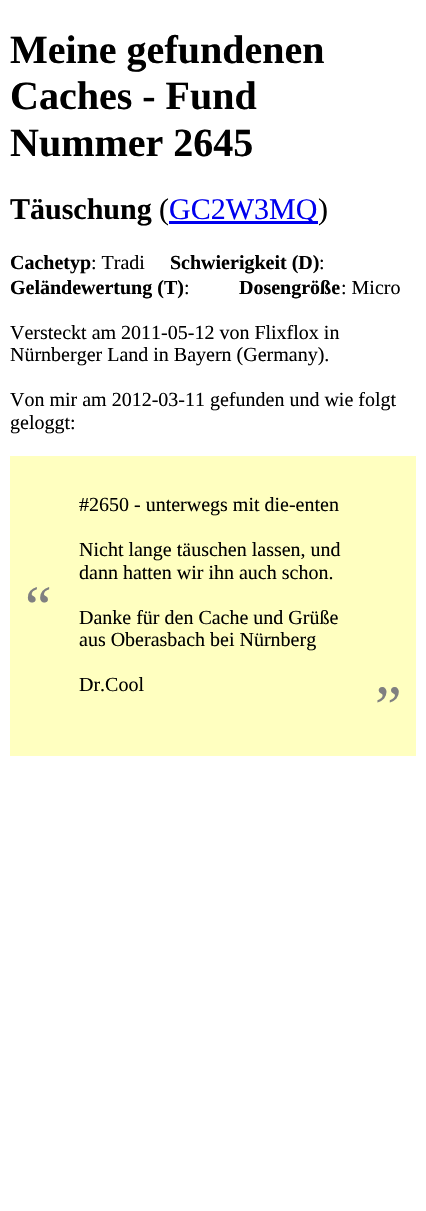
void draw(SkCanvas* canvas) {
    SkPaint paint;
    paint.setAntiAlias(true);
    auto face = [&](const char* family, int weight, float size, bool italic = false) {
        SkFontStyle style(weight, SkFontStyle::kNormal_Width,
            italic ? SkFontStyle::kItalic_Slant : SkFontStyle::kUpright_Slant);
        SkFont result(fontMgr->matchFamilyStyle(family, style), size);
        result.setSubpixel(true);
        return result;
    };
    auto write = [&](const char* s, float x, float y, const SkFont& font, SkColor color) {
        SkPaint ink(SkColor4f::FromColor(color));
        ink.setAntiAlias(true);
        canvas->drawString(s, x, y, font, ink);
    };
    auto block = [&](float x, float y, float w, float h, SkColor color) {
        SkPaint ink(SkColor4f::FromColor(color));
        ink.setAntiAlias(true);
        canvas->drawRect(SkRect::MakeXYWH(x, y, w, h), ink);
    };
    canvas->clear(SK_ColorWHITE);
    auto kFont1 = face("Liberation Serif", 700, 40);
    write("Meine gefundenen", 10, 63, kFont1, SK_ColorBLACK);
    write("Caches - Fund", 10, 109, kFont1, SK_ColorBLACK);
    write("Nummer 2645", 10, 156, kFont1, SK_ColorBLACK);
    auto kFont2 = face("Liberation Serif", 700, 30);
    write("Täuschung", 10, 219, kFont2, SK_ColorBLACK);
    auto kFont3 = face("Liberation Serif", 400, 30);
    write("(", 159, 219, kFont3, SK_ColorBLACK);
    block(169, 221, 149, 3, SkColorSetRGB(0, 0, 238));
    write("GC2W3MQ", 169, 219, kFont3, SkColorSetRGB(0, 0, 238));
    write(")", 318, 219, kFont3, SK_ColorBLACK);
    auto kFont4 = face("Liberation Serif", 700, 20);
    write("Cachetyp", 10, 269, kFont4, SK_ColorBLACK);
    auto kFont5 = face("Liberation Serif", 400, 20);
    write(": Tradi", 91, 269, kFont5, SK_ColorBLACK);
    write("Schwierigkeit (D)", 170, 269, kFont4, SK_ColorBLACK);
    write(":", 319, 269, kFont5, SK_ColorBLACK);
    write("Geländewertung (T)", 10, 294, kFont4, SK_ColorBLACK);
    write(":", 184, 294, kFont5, SK_ColorBLACK);
    write("Dosengröße", 239, 294, kFont4, SK_ColorBLACK);
    write(": Micro", 341, 294, kFont5, SK_ColorBLACK);
    write("Versteckt am 2011-05-12 von Flixflox in", 10, 339, kFont5, SK_ColorBLACK);
    write("Nürnberger Land in Bayern (Germany).", 10, 361, kFont5, SK_ColorBLACK);
    write("Von mir am 2012-03-11 gefunden und wie folgt", 10, 406, kFont5, SK_ColorBLACK);
    write("geloggt:", 10, 429, kFont5, SK_ColorBLACK);
    block(10, 456, 406, 300, SkColorSetRGB(255, 255, 192));
    auto kFont6 = face("Liberation Serif", 400, 60);
    write("“", 25, 627, kFont6, SkColorSetRGB(128, 128, 128));
    write("#2650 - unterwegs mit die-enten", 79, 511, kFont5, SK_ColorBLACK);
    write("Nicht lange täuschen lassen, und", 79, 556, kFont5, SK_ColorBLACK);
    write("dann hatten wir ihn auch schon.", 79, 579, kFont5, SK_ColorBLACK);
    write("Danke für den Cache und Grüße", 79, 624, kFont5, SK_ColorBLACK);
    write("aus Oberasbach bei Nürnberg", 79, 646, kFont5, SK_ColorBLACK);
    write("Dr.Cool", 79, 691, kFont5, SK_ColorBLACK);
    write("”", 375, 727, kFont6, SkColorSetRGB(128, 128, 128));
}
